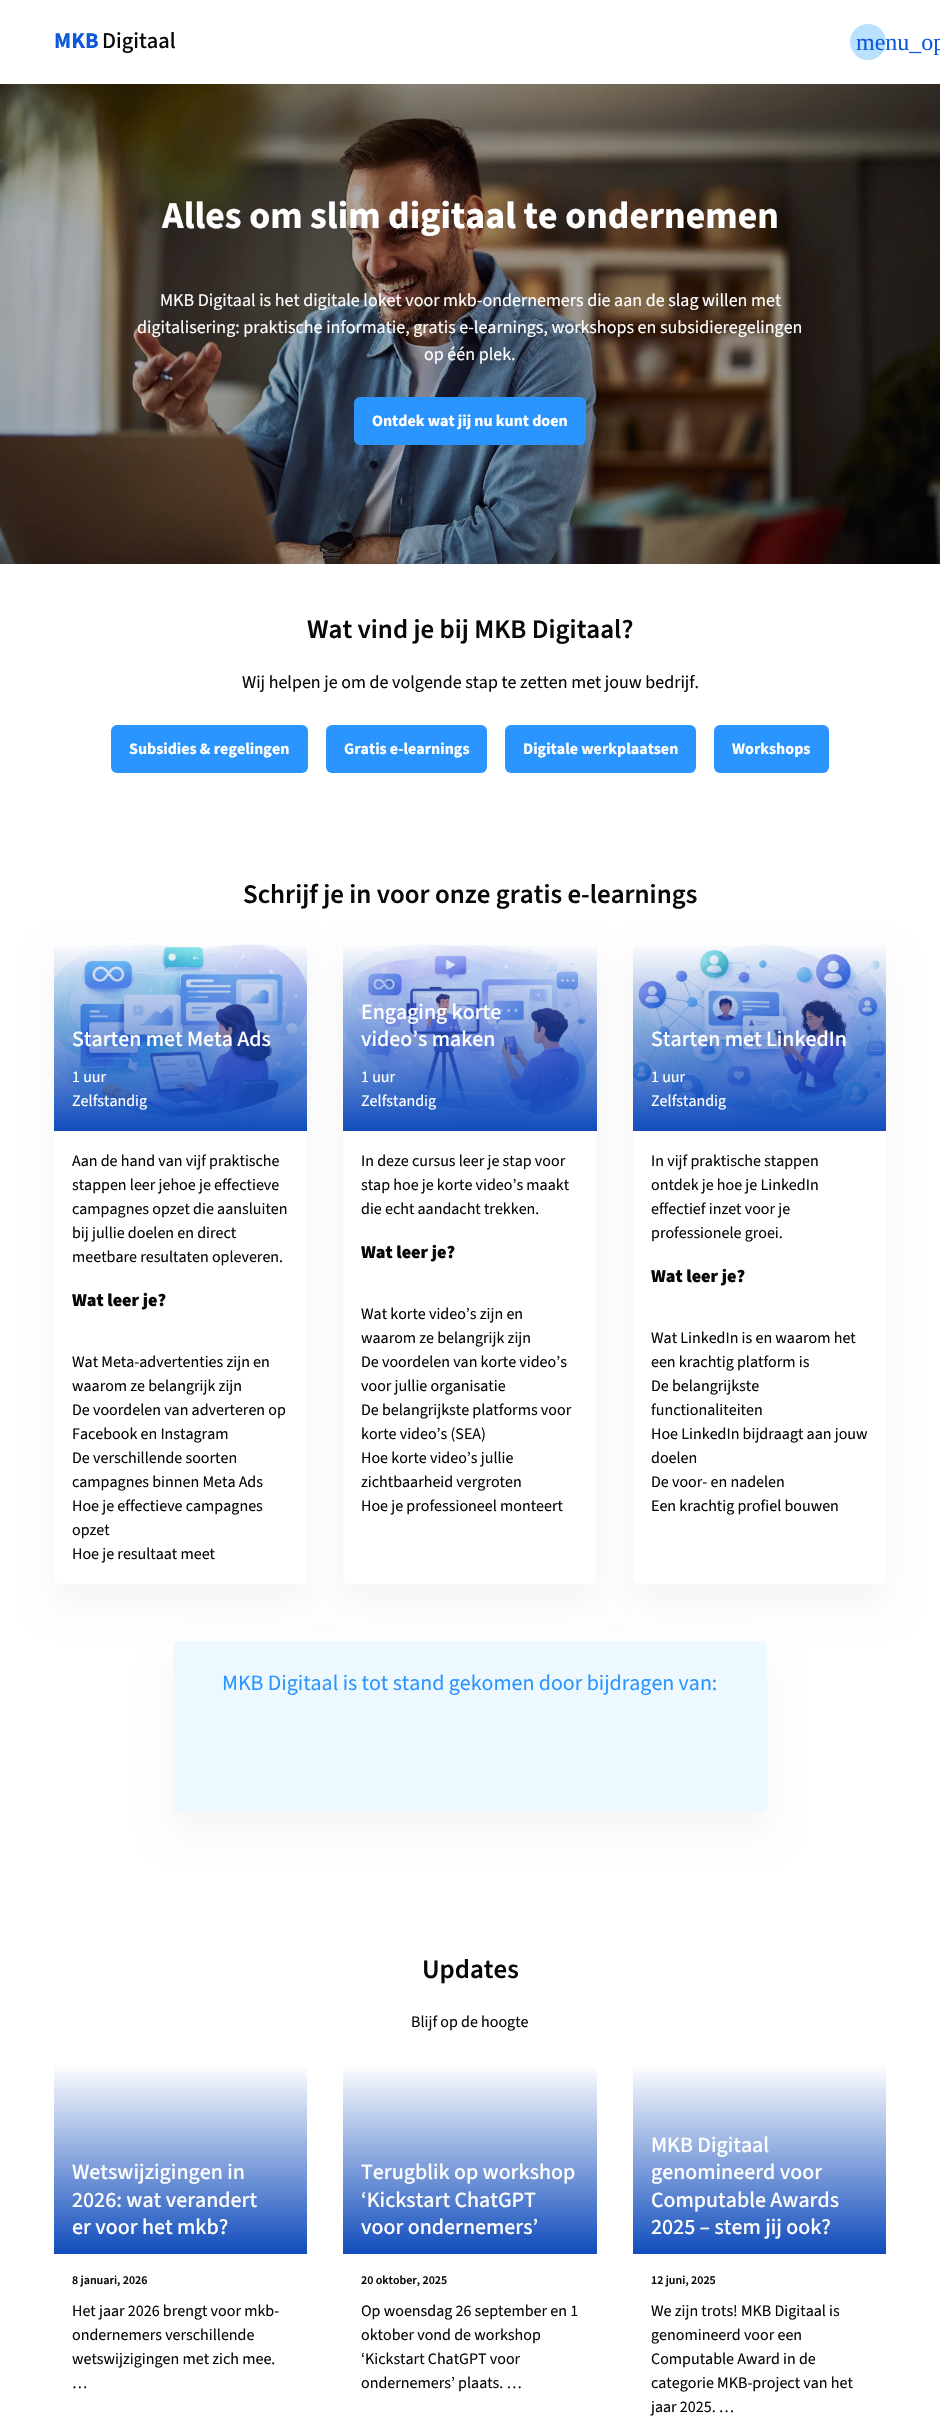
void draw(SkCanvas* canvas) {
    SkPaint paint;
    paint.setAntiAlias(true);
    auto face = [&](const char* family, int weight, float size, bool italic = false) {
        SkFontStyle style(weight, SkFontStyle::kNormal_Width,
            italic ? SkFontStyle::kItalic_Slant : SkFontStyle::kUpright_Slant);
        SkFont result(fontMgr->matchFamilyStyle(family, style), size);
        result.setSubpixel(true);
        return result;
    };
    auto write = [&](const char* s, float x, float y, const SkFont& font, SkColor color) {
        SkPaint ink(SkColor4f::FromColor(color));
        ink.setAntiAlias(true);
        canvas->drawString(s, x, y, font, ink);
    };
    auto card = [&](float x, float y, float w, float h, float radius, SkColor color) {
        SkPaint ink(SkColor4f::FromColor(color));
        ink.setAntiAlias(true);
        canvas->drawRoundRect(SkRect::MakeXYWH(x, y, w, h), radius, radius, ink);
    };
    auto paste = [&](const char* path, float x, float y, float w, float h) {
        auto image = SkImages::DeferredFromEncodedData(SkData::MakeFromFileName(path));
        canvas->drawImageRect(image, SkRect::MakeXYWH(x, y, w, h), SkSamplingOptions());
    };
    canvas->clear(SK_ColorWHITE);
    auto kFont1 = face("Source Sans 3", 700, 22.5f);
    write("MKB", 54, 48, kFont1, SkColorSetRGB(12, 89, 219));
    auto kFont2 = face("Source Sans 3", 500, 22.5f);
    write("Digitaal", 102, 48, kFont2, SkColorSetRGB(8, 8, 8));
    paint.setColor(SkColorSetRGB(186, 226, 255));
    canvas->drawCircle(868, 42, 18, paint);
    auto kFont3 = face("Liberation Serif", 400, 24);
    write("menu_op", 856, 50, kFont3, SkColorSetRGB(12, 89, 219));
    paste("pic1.png", 0, 84, 940, 480);
    auto kFont4 = face("Source Sans 3", 700, 37.8f);
    write("Alles om slim digitaal te ondernemen", 162, 228, kFont4, SK_ColorWHITE);
    auto kFont5 = face("Source Sans 3", 400, 18);
    write("MKB Digitaal is het digitale loket voor mkb-ondernemers die aan de slag willen met", 160, 306, kFont5, SK_ColorWHITE);
    write("digitalisering: praktische informatie, gratis e-learnings, workshops en subsidieregelingen", 137, 333, kFont5, SK_ColorWHITE);
    write("op één plek.", 424, 360, kFont5, SK_ColorWHITE);
    card(354, 397, 232, 48, 6, SkColorSetRGB(43, 149, 255));
    auto kFont6 = face("Source Sans 3", 700, 16);
    write("Ontdek wat jij nu kunt doen", 372, 426, kFont6, SK_ColorWHITE);
    auto kFont7 = face("Source Sans 3", 600, 26.9f);
    write("Wat vind je bij MKB Digitaal?", 307, 638, kFont7, SkColorSetRGB(8, 8, 8));
    write("Wij helpen je om de volgende stap te zetten met jouw bedrijf.", 242, 688, kFont5, SkColorSetRGB(8, 8, 8));
    card(111, 725, 197, 48, 6, SkColorSetRGB(43, 149, 255));
    write("Subsidies & regelingen", 129, 754, kFont6, SK_ColorWHITE);
    card(326, 725, 161, 48, 6, SkColorSetRGB(43, 149, 255));
    write("Gratis e-learnings", 344, 754, kFont6, SK_ColorWHITE);
    card(505, 725, 191, 48, 6, SkColorSetRGB(43, 149, 255));
    write("Digitale werkplaatsen", 523, 754, kFont6, SK_ColorWHITE);
    card(714, 725, 115, 48, 6, SkColorSetRGB(43, 149, 255));
    write("Workshops", 732, 754, kFont6, SK_ColorWHITE);
    write("Schrijf je in voor onze gratis e-learnings", 243, 903, kFont7, SkColorSetRGB(8, 8, 8));
    paint.setColor(SkColorSetARGB(10, 0, 0, 0));
    paint.setMaskFilter(SkMaskFilter::MakeBlur(kNormal_SkBlurStyle, 16.5f));
    canvas->drawRoundRect(SkRect::MakeXYWH(54, 961, 253, 643), 6, 6, paint);
    paint.setMaskFilter(nullptr);
    card(54, 941, 253, 643, 6, SK_ColorWHITE);
    paint.setMaskFilter(SkMaskFilter::MakeBlur(kNormal_SkBlurStyle, 16.5f));
    canvas->drawRoundRect(SkRect::MakeXYWH(343, 961, 254, 643), 6, 6, paint);
    paint.setMaskFilter(nullptr);
    paste("pic2.png", 54, 943, 253, 186);
    {
        const SkColor colors[] = {SkColorSetARGB(0, 17, 76, 188), SkColorSetRGB(17, 76, 188)};
        const float stops[] = {0, 1};
        const SkPoint ends[] = {{181, 941}, {181, 1131}};
        paint.setShader(SkGradientShader::MakeLinear(ends, colors, stops, 2, SkTileMode::kClamp));
        paint.setAlpha(255);
    }
    canvas->drawRect(SkRect::MakeXYWH(54, 945, 253, 186), paint);
    auto kFont8 = face("Source Sans 3", 500, 21.9f);
    write("Starten met Meta Ads", 72, 1046, kFont8, SK_ColorWHITE);
    auto kFont9 = face("Source Sans 3", 400, 16);
    write("1 uur", 72, 1082, kFont9, SK_ColorWHITE);
    write("Zelfstandig", 72, 1106, kFont9, SK_ColorWHITE);
    write("Aan de hand van vijf praktische", 72, 1166, kFont9, SkColorSetRGB(8, 8, 8));
    write("stappen leer jehoe je effectieve", 72, 1190, kFont9, SkColorSetRGB(8, 8, 8));
    write("campagnes opzet die aansluiten", 72, 1214, kFont9, SkColorSetRGB(8, 8, 8));
    write("bij jullie doelen en direct", 72, 1238, kFont9, SkColorSetRGB(8, 8, 8));
    write("meetbare resultaten opleveren.", 72, 1262, kFont9, SkColorSetRGB(8, 8, 8));
    auto kFont10 = face("Source Sans 3", 900, 18);
    write("Wat leer je?", 72, 1306, kFont10, SkColorSetRGB(8, 8, 8));
    write("Wat Meta-advertenties zijn en", 72, 1367, kFont9, SkColorSetRGB(8, 8, 8));
    write("waarom ze belangrijk zijn", 72, 1391, kFont9, SkColorSetRGB(8, 8, 8));
    write("De voordelen van adverteren op", 72, 1415, kFont9, SkColorSetRGB(8, 8, 8));
    write("Facebook en Instagram", 72, 1439, kFont9, SkColorSetRGB(8, 8, 8));
    write("De verschillende soorten", 72, 1463, kFont9, SkColorSetRGB(8, 8, 8));
    write("campagnes binnen Meta Ads", 72, 1487, kFont9, SkColorSetRGB(8, 8, 8));
    write("Hoe je effectieve campagnes", 72, 1511, kFont9, SkColorSetRGB(8, 8, 8));
    write("opzet", 72, 1535, kFont9, SkColorSetRGB(8, 8, 8));
    write("Hoe je resultaat meet", 72, 1559, kFont9, SkColorSetRGB(8, 8, 8));
    card(343, 941, 254, 643, 6, SK_ColorWHITE);
    paint.setShader(nullptr);
    paint.setColor(SkColorSetARGB(10, 0, 0, 0));
    paint.setMaskFilter(SkMaskFilter::MakeBlur(kNormal_SkBlurStyle, 16.5f));
    canvas->drawRoundRect(SkRect::MakeXYWH(633, 961, 253, 643), 6, 6, paint);
    paint.setMaskFilter(nullptr);
    paste("pic3.png", 343, 944, 254, 185);
    {
        const SkColor colors[] = {SkColorSetARGB(0, 17, 76, 188), SkColorSetRGB(17, 76, 188)};
        const float stops[] = {0, 1};
        const SkPoint ends[] = {{470, 941}, {470, 1131}};
        paint.setShader(SkGradientShader::MakeLinear(ends, colors, stops, 2, SkTileMode::kClamp));
        paint.setAlpha(255);
    }
    canvas->drawRect(SkRect::MakeXYWH(343, 945, 254, 186), paint);
    write("Engaging korte", 361, 1019, kFont8, SK_ColorWHITE);
    write("video’s maken", 361, 1046, kFont8, SK_ColorWHITE);
    write("1 uur", 361, 1082, kFont9, SK_ColorWHITE);
    write("Zelfstandig", 361, 1106, kFont9, SK_ColorWHITE);
    write("In deze cursus leer je stap voor", 361, 1166, kFont9, SkColorSetRGB(8, 8, 8));
    write("stap hoe je korte video’s maakt", 361, 1190, kFont9, SkColorSetRGB(8, 8, 8));
    write("die echt aandacht trekken.", 361, 1214, kFont9, SkColorSetRGB(8, 8, 8));
    write("Wat leer je?", 361, 1258, kFont10, SkColorSetRGB(8, 8, 8));
    write("Wat korte video’s zijn en", 361, 1319, kFont9, SkColorSetRGB(8, 8, 8));
    write("waarom ze belangrijk zijn", 361, 1343, kFont9, SkColorSetRGB(8, 8, 8));
    write("De voordelen van korte video’s", 361, 1367, kFont9, SkColorSetRGB(8, 8, 8));
    write("voor jullie organisatie", 361, 1391, kFont9, SkColorSetRGB(8, 8, 8));
    write("De belangrijkste platforms voor", 361, 1415, kFont9, SkColorSetRGB(8, 8, 8));
    write("korte video’s (SEA)", 361, 1439, kFont9, SkColorSetRGB(8, 8, 8));
    write("Hoe korte video’s jullie", 361, 1463, kFont9, SkColorSetRGB(8, 8, 8));
    write("zichtbaarheid vergroten", 361, 1487, kFont9, SkColorSetRGB(8, 8, 8));
    write("Hoe je professioneel monteert", 361, 1511, kFont9, SkColorSetRGB(8, 8, 8));
    card(633, 941, 253, 643, 6, SK_ColorWHITE);
    paste("pic4.png", 633, 944, 253, 186);
    {
        const SkColor colors[] = {SkColorSetARGB(0, 17, 76, 188), SkColorSetRGB(17, 76, 188)};
        const float stops[] = {0, 1};
        const SkPoint ends[] = {{760, 941}, {760, 1131}};
        paint.setShader(SkGradientShader::MakeLinear(ends, colors, stops, 2, SkTileMode::kClamp));
        paint.setAlpha(255);
    }
    canvas->drawRect(SkRect::MakeXYWH(633, 945, 253, 186), paint);
    write("Starten met LinkedIn", 651, 1046, kFont8, SK_ColorWHITE);
    write("1 uur", 651, 1082, kFont9, SK_ColorWHITE);
    write("Zelfstandig", 651, 1106, kFont9, SK_ColorWHITE);
    write("In vijf praktische stappen", 651, 1166, kFont9, SkColorSetRGB(8, 8, 8));
    write("ontdek je hoe je LinkedIn", 651, 1190, kFont9, SkColorSetRGB(8, 8, 8));
    write("effectief inzet voor je", 651, 1214, kFont9, SkColorSetRGB(8, 8, 8));
    write("professionele groei.", 651, 1238, kFont9, SkColorSetRGB(8, 8, 8));
    write("Wat leer je?", 651, 1282, kFont10, SkColorSetRGB(8, 8, 8));
    write("Wat LinkedIn is en waarom het", 651, 1343, kFont9, SkColorSetRGB(8, 8, 8));
    write("een krachtig platform is", 651, 1367, kFont9, SkColorSetRGB(8, 8, 8));
    write("De belangrijkste", 651, 1391, kFont9, SkColorSetRGB(8, 8, 8));
    write("functionaliteiten", 651, 1415, kFont9, SkColorSetRGB(8, 8, 8));
    write("Hoe LinkedIn bijdraagt aan jouw", 651, 1439, kFont9, SkColorSetRGB(8, 8, 8));
    write("doelen", 651, 1463, kFont9, SkColorSetRGB(8, 8, 8));
    write("De voor- en nadelen", 651, 1487, kFont9, SkColorSetRGB(8, 8, 8));
    write("Een krachtig profiel bouwen", 651, 1511, kFont9, SkColorSetRGB(8, 8, 8));
    paint.setShader(nullptr);
    paint.setColor(SkColorSetARGB(10, 0, 0, 0));
    paint.setMaskFilter(SkMaskFilter::MakeBlur(kNormal_SkBlurStyle, 16.5f));
    canvas->drawRoundRect(SkRect::MakeXYWH(173, 1661, 594, 171), 6, 6, paint);
    paint.setMaskFilter(nullptr);
    card(173, 1641, 594, 171, 6, SkColorSetRGB(238, 248, 255));
    auto kFont11 = face("Source Sans 3", 400, 21.9f);
    write("MKB Digitaal is tot stand gekomen door bijdragen van:", 222, 1690, kFont11, SkColorSetRGB(43, 149, 255));
    write("Updates", 422, 1978, kFont7, SkColorSetRGB(8, 8, 8));
    write("Blijf op de hoogte", 411, 2027, kFont9, SkColorSetRGB(8, 8, 8));
    {
        const SkColor colors[] = {SK_ColorWHITE, SkColorSetRGB(17, 76, 188)};
        const float stops[] = {0, 1};
        const SkPoint ends[] = {{181, 2064}, {181, 2254}};
        paint.setShader(SkGradientShader::MakeLinear(ends, colors, stops, 2, SkTileMode::kClamp));
        paint.setAlpha(255);
    }
    canvas->drawPath(SkPathBuilder().moveTo(60, 2064).lineTo(301, 2064).cubicTo(304.5f, 2064, 307, 2066.5f, 307, 2070).lineTo(307, 2254).lineTo(54, 2254).lineTo(54, 2070).cubicTo(54, 2066.5f, 56.5f, 2064, 60, 2064).close().detach(), paint);
    write("Wetswijzigingen in", 72, 2179, kFont8, SK_ColorWHITE);
    write("2026: wat verandert", 72, 2207, kFont8, SK_ColorWHITE);
    write("er voor het mkb?", 72, 2234, kFont8, SK_ColorWHITE);
    auto kFont12 = face("Source Sans 3", 600, 12);
    write("8 januari, 2026", 72, 2284, kFont12, SkColorSetRGB(8, 8, 8));
    write("Het jaar 2026 brengt voor mkb-", 72, 2316, kFont9, SkColorSetRGB(8, 8, 8));
    write("ondernemers verschillende", 72, 2340, kFont9, SkColorSetRGB(8, 8, 8));
    write("wetswijzigingen met zich mee.", 72, 2364, kFont9, SkColorSetRGB(8, 8, 8));
    write("…", 72, 2388, kFont9, SkColorSetRGB(8, 8, 8));
    {
        const SkColor colors[] = {SK_ColorWHITE, SkColorSetRGB(17, 76, 188)};
        const float stops[] = {0, 1};
        const SkPoint ends[] = {{470, 2064}, {470, 2254}};
        paint.setShader(SkGradientShader::MakeLinear(ends, colors, stops, 2, SkTileMode::kClamp));
        paint.setAlpha(255);
    }
    canvas->drawPath(SkPathBuilder().moveTo(349, 2064).lineTo(591, 2064).cubicTo(594.5f, 2064, 597, 2066.5f, 597, 2070).lineTo(597, 2254).lineTo(343, 2254).lineTo(343, 2070).cubicTo(343, 2066.5f, 345.5f, 2064, 349, 2064).close().detach(), paint);
    write("Terugblik op workshop", 361, 2179, kFont8, SK_ColorWHITE);
    write("‘Kickstart ChatGPT", 361, 2207, kFont8, SK_ColorWHITE);
    write("voor ondernemers’", 361, 2234, kFont8, SK_ColorWHITE);
    write("20 oktober, 2025", 361, 2284, kFont12, SkColorSetRGB(8, 8, 8));
    write("Op woensdag 26 september en 1", 361, 2316, kFont9, SkColorSetRGB(8, 8, 8));
    write("oktober vond de workshop", 361, 2340, kFont9, SkColorSetRGB(8, 8, 8));
    write("‘Kickstart ChatGPT voor", 361, 2364, kFont9, SkColorSetRGB(8, 8, 8));
    write("ondernemers’ plaats. …", 361, 2388, kFont9, SkColorSetRGB(8, 8, 8));
    {
        const SkColor colors[] = {SK_ColorWHITE, SkColorSetRGB(17, 76, 188)};
        const float stops[] = {0, 1};
        const SkPoint ends[] = {{760, 2064}, {760, 2254}};
        paint.setShader(SkGradientShader::MakeLinear(ends, colors, stops, 2, SkTileMode::kClamp));
        paint.setAlpha(255);
    }
    canvas->drawPath(SkPathBuilder().moveTo(639, 2064).lineTo(880, 2064).cubicTo(883.5f, 2064, 886, 2066.5f, 886, 2070).lineTo(886, 2254).lineTo(633, 2254).lineTo(633, 2070).cubicTo(633, 2066.5f, 635.5f, 2064, 639, 2064).close().detach(), paint);
    write("MKB Digitaal", 651, 2152, kFont8, SK_ColorWHITE);
    write("genomineerd voor", 651, 2179, kFont8, SK_ColorWHITE);
    write("Computable Awards", 651, 2207, kFont8, SK_ColorWHITE);
    write("2025 – stem jij ook?", 651, 2234, kFont8, SK_ColorWHITE);
    write("12 juni, 2025", 651, 2284, kFont12, SkColorSetRGB(8, 8, 8));
    write("We zijn trots! MKB Digitaal is", 651, 2316, kFont9, SkColorSetRGB(8, 8, 8));
    write("genomineerd voor een", 651, 2340, kFont9, SkColorSetRGB(8, 8, 8));
    write("Computable Award in de", 651, 2364, kFont9, SkColorSetRGB(8, 8, 8));
    write("categorie MKB-project van het", 651, 2388, kFont9, SkColorSetRGB(8, 8, 8));
    write("jaar 2025. …", 651, 2412, kFont9, SkColorSetRGB(8, 8, 8));
}
